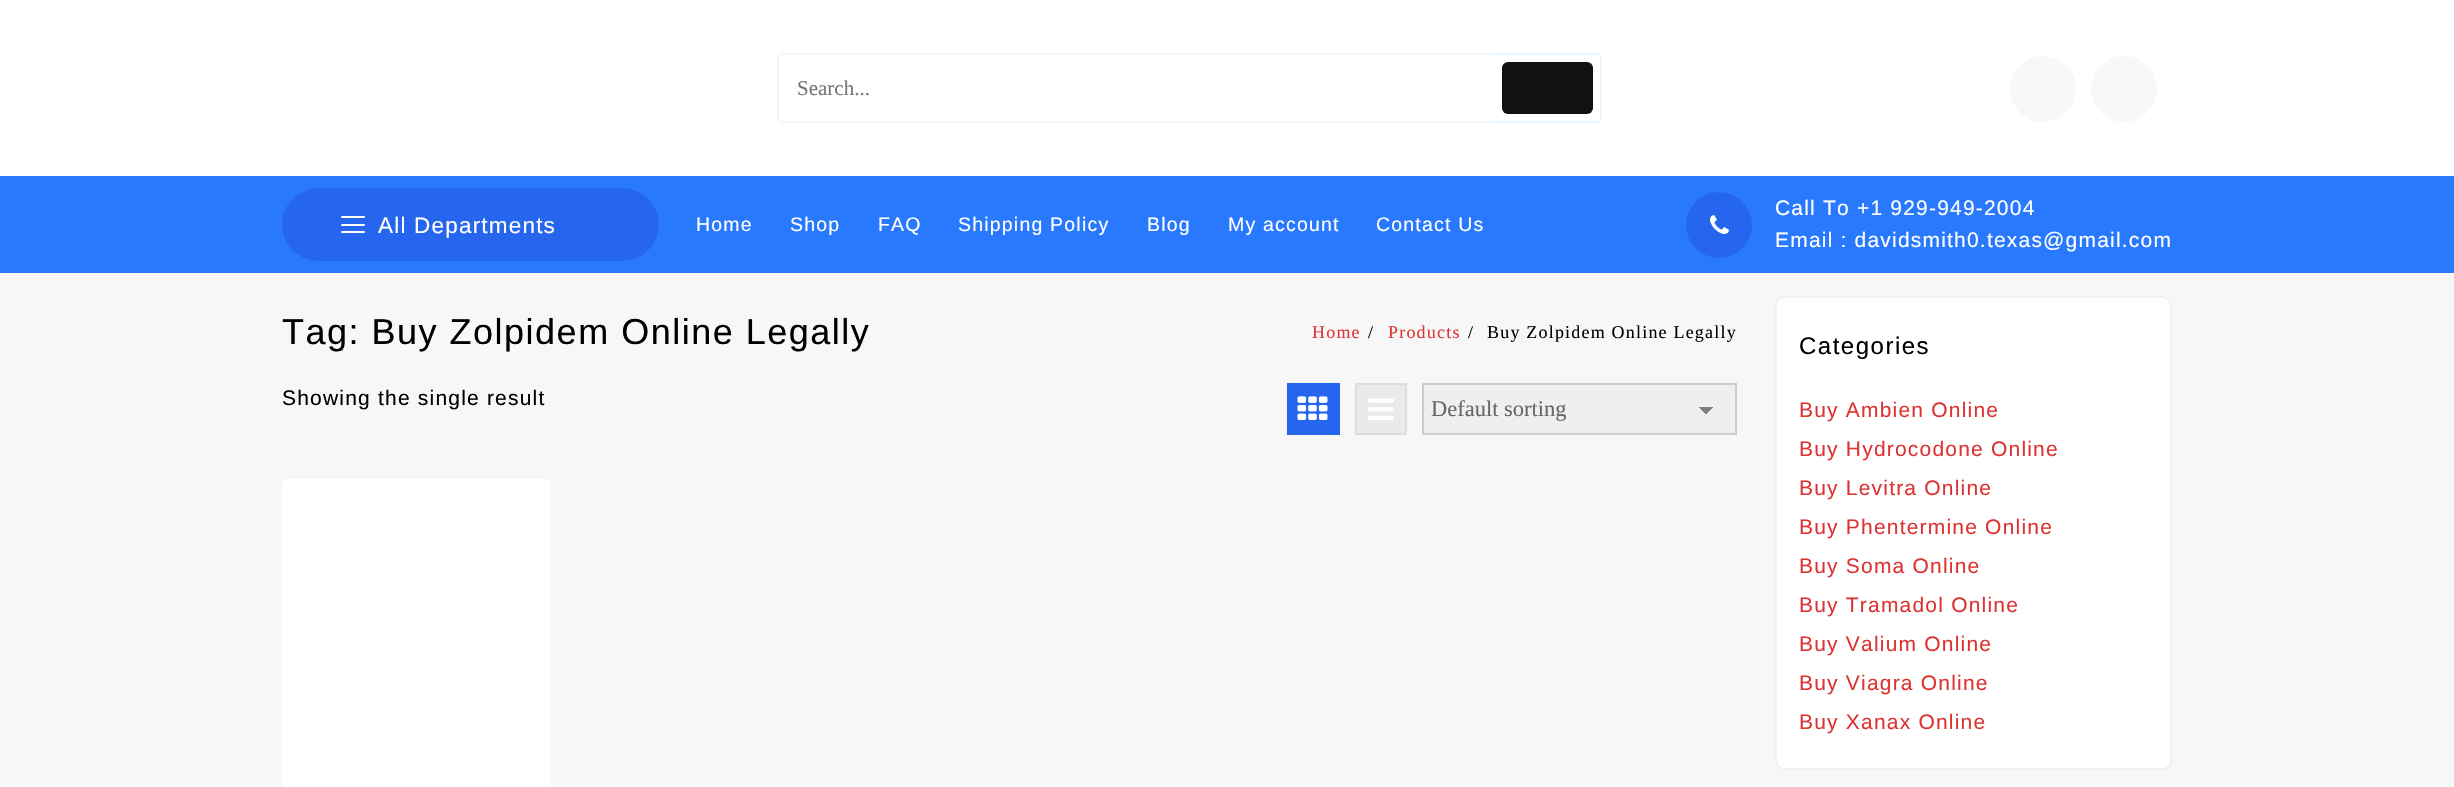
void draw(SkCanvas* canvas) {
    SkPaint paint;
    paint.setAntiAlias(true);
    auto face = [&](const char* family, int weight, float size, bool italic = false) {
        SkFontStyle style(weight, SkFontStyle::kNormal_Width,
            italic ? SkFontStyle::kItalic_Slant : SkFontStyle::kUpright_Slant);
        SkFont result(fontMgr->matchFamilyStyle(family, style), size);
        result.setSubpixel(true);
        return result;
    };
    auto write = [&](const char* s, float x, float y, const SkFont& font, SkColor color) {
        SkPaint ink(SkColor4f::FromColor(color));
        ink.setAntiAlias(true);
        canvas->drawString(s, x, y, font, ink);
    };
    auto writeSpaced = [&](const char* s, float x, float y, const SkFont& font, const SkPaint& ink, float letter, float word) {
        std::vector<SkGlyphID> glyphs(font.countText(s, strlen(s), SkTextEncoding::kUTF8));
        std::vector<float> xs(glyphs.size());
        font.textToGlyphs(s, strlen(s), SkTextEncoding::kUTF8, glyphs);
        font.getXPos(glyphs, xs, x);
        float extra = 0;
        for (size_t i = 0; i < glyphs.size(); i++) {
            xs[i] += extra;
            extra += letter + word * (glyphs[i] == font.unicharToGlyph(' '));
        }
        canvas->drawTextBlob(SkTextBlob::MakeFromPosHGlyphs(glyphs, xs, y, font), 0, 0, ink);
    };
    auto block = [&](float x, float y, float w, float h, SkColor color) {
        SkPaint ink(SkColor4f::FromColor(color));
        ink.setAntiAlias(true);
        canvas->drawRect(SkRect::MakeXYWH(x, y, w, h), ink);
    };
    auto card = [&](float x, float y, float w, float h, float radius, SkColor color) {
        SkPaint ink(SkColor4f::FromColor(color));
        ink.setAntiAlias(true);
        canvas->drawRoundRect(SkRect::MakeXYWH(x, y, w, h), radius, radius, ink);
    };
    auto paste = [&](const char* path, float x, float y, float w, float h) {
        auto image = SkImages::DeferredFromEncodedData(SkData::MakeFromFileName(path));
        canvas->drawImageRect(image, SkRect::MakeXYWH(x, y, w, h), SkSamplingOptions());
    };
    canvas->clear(SkColorSetRGB(247, 247, 247));
    block(0, 0, 2454, 176, SK_ColorWHITE);
    paint.setStyle(SkPaint::kStroke_Style);
    paint.setStrokeWidth(2);
    paint.setColor(SkColorSetRGB(231, 245, 255));
    canvas->drawRoundRect(SkRect::MakeXYWH(778, 54, 823, 68), 5, 5, paint);
    card(779, 54, 717, 68, 6, SK_ColorWHITE);
    auto kFont1 = face("Liberation Serif", 400, 21);
    write("Search...", 797, 95, kFont1, SkColorSetRGB(117, 117, 117));
    card(1502, 62, 91, 52, 6, SkColorSetRGB(17, 17, 17));
    paint.setStyle(SkPaint::kFill_Style);
    paint.setColor(SkColorSetRGB(247, 248, 249));
    canvas->drawCircle(2043, 89, 33, paint);
    canvas->drawCircle(2124, 89, 33, paint);
    block(0, 176, 2454, 97, SkColorSetRGB(40, 121, 254));
    card(282, 188, 377, 73, 36.5f, SkColorSetRGB(38, 102, 239));
    card(341, 216, 24, 2, 1, SK_ColorWHITE);
    card(341, 224, 24, 2, 1, SK_ColorWHITE);
    card(341, 231, 24, 2, 1, SK_ColorWHITE);
    auto kFont2 = face("Liberation Sans", 400, 22.5f);
    paint.setColor(SK_ColorWHITE);
    writeSpaced("All Departments", 378, 233, kFont2, paint, 1.2f, 0);
    auto kFont3 = face("Liberation Sans", 400, 19.5f);
    writeSpaced("Home", 696, 231, kFont3, paint, 1.2f, 0);
    writeSpaced("Shop", 790, 231, kFont3, paint, 1.2f, 0);
    writeSpaced("FAQ", 878, 231, kFont3, paint, 1.2f, 0);
    writeSpaced("Shipping Policy", 958, 231, kFont3, paint, 1.2f, 0);
    writeSpaced("Blog", 1147, 231, kFont3, paint, 1.2f, 0);
    writeSpaced("My account", 1228, 231, kFont3, paint, 1.2f, 0);
    writeSpaced("Contact Us", 1376, 231, kFont3, paint, 1.2f, 0);
    paint.setColor(SkColorSetRGB(38, 102, 239));
    canvas->drawCircle(1719, 225, 33, paint);
    paste("pic1.png", 1710, 215, 19, 19);
    auto kFont4 = face("Liberation Sans", 400, 21);
    paint.setColor(SK_ColorWHITE);
    writeSpaced("Call To +1 929-949-2004", 1775, 215, kFont4, paint, 1.2f, 0);
    writeSpaced("Email : davidsmith0.texas@gmail.com", 1775, 247, kFont4, paint, 1.2f, 0);
    auto kFont5 = face("Liberation Sans", 400, 36);
    paint.setColor(SK_ColorBLACK);
    writeSpaced("Tag: Buy Zolpidem Online Legally", 282, 344, kFont5, paint, 1.5f, 0);
    auto kFont6 = face("Liberation Serif", 400, 18);
    paint.setColor(SkColorSetRGB(221, 51, 51));
    writeSpaced("Home", 1312, 338, kFont6, paint, 1.2f, 0);
    paint.setColor(SK_ColorBLACK);
    writeSpaced("/", 1368, 338, kFont6, paint, 1.2f, 0);
    paint.setColor(SkColorSetRGB(221, 51, 51));
    writeSpaced("Products", 1388, 338, kFont6, paint, 1.2f, 0);
    paint.setColor(SK_ColorBLACK);
    writeSpaced("/", 1468, 338, kFont6, paint, 1.2f, 0);
    writeSpaced("Buy Zolpidem Online Legally", 1487, 338, kFont6, paint, 1.2f, 0);
    writeSpaced("Showing the single result", 282, 405, kFont4, paint, 1.2f, 0);
    block(1287, 383, 53, 52, SkColorSetRGB(38, 102, 239));
    paste("pic2.png", 1297, 396, 31, 24);
    paint.setColor(SkColorSetRGB(235, 233, 235));
    canvas->drawRect(SkRect::MakeXYWH(1356, 384, 50, 50), paint);
    paint.setStyle(SkPaint::kStroke_Style);
    paint.setColor(SkColorSetRGB(221, 221, 221));
    canvas->drawRect(SkRect::MakeXYWH(1356, 384, 50, 50), paint);
    paste("pic3.png", 1368, 398, 26, 22);
    block(1424, 385, 311, 48, SkColorSetRGB(239, 239, 239));
    paint.setStyle(SkPaint::kFill_Style);
    {
        const SkColor colors[] = {SkColorSetRGB(128, 128, 128), SkColorSetRGB(239, 239, 239)};
        const float stops[] = {0.5f, 0.5f};
        const SkPoint ends[] = {{1706, 407}, {1713, 414}};
        paint.setShader(SkGradientShader::MakeLinear(ends, colors, stops, 2, SkTileMode::kClamp));
        paint.setAlpha(255);
    }
    canvas->drawRect(SkRect::MakeXYWH(1706, 407, 7, 7), paint);
    {
        const SkColor colors[] = {SkColorSetRGB(239, 239, 239), SkColorSetRGB(128, 128, 128)};
        const float stops[] = {0.5f, 0.5f};
        const SkPoint ends[] = {{1698, 414}, {1706, 407}};
        paint.setShader(SkGradientShader::MakeLinear(ends, colors, stops, 2, SkTileMode::kClamp));
        paint.setAlpha(255);
    }
    canvas->drawRect(SkRect::MakeXYWH(1698, 407, 8, 7), paint);
    paint.setStyle(SkPaint::kStroke_Style);
    paint.setShader(nullptr);
    paint.setColor(SkColorSetRGB(204, 204, 204));
    canvas->drawRect(SkRect::MakeXYWH(1423, 384, 313, 50), paint);
    auto kFont7 = face("Liberation Serif", 400, 22.5f);
    write("Default sorting", 1431, 416, kFont7, SkColorSetRGB(102, 102, 102));
    card(282, 479, 269, 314, 6, SK_ColorWHITE);
    paint.setStyle(SkPaint::kFill_Style);
    paint.setColor(SK_ColorWHITE);
    canvas->drawRoundRect(SkRect::MakeXYWH(1776, 297, 395, 472), 8, 8, paint);
    paint.setStyle(SkPaint::kStroke_Style);
    paint.setColor(SkColorSetRGB(241, 241, 241));
    canvas->drawRoundRect(SkRect::MakeXYWH(1776, 297, 395, 472), 8, 8, paint);
    auto kFont8 = face("Liberation Sans", 400, 24);
    paint.setStyle(SkPaint::kFill_Style);
    paint.setColor(SK_ColorBLACK);
    writeSpaced("Categories", 1799, 354, kFont8, paint, 1.5f, 0);
    paint.setColor(SkColorSetRGB(221, 51, 51));
    writeSpaced("Buy Ambien Online", 1799, 417, kFont4, paint, 1.2f, 0);
    writeSpaced("Buy Hydrocodone Online", 1799, 456, kFont4, paint, 1.2f, 0);
    writeSpaced("Buy Levitra Online", 1799, 495, kFont4, paint, 1.2f, 0);
    writeSpaced("Buy Phentermine Online", 1799, 534, kFont4, paint, 1.2f, 0);
    writeSpaced("Buy Soma Online", 1799, 573, kFont4, paint, 1.2f, 0);
    writeSpaced("Buy Tramadol Online", 1799, 612, kFont4, paint, 1.2f, 0);
    writeSpaced("Buy Valium Online", 1799, 651, kFont4, paint, 1.2f, 0);
    writeSpaced("Buy Viagra Online", 1799, 690, kFont4, paint, 1.2f, 0);
    writeSpaced("Buy Xanax Online", 1799, 729, kFont4, paint, 1.2f, 0);
}
